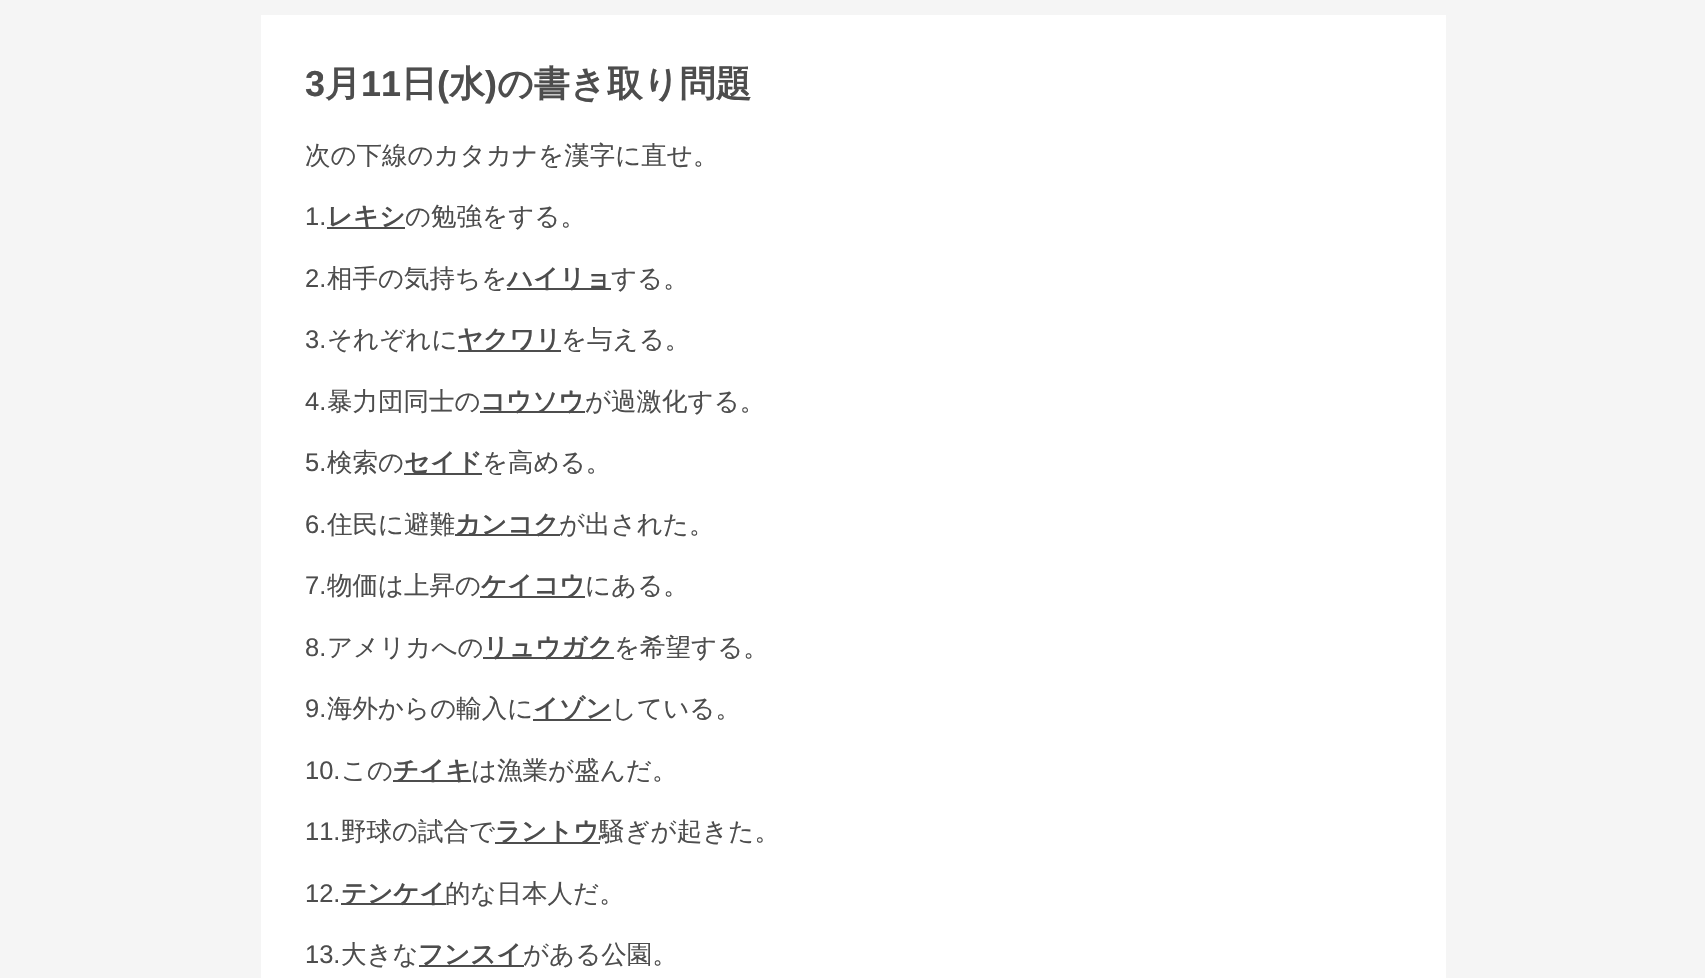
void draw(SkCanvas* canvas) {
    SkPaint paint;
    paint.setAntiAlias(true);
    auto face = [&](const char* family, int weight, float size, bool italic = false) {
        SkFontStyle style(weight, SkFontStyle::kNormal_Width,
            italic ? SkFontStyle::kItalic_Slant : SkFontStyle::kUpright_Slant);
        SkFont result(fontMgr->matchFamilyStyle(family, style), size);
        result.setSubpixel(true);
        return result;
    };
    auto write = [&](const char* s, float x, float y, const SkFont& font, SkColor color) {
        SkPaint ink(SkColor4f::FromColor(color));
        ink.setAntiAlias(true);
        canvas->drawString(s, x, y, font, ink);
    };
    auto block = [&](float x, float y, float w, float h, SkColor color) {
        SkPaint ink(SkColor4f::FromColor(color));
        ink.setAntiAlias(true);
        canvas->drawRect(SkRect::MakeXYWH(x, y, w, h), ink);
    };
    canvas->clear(SkColorSetRGB(245, 245, 245));
    block(261, 15, 1185, 963, SK_ColorWHITE);
    auto kFont1 = face("Liberation Sans", 700, 36);
    write("3", 305, 96, kFont1, SkColorSetRGB(77, 77, 77));
    auto kFont2 = face("WenQuanYi Zen Hei", 700, 36);
    write("月", 325, 96, kFont2, SkColorSetRGB(77, 77, 77));
    write("11", 361, 96, kFont1, SkColorSetRGB(77, 77, 77));
    write("日", 401, 96, kFont2, SkColorSetRGB(77, 77, 77));
    write("(", 437, 96, kFont1, SkColorSetRGB(77, 77, 77));
    write("水", 449, 96, kFont2, SkColorSetRGB(77, 77, 77));
    write(")", 485, 96, kFont1, SkColorSetRGB(77, 77, 77));
    write("の書き取り問題", 497, 96, kFont2, SkColorSetRGB(77, 77, 77));
    auto kFont3 = face("WenQuanYi Zen Hei", 500, 25.5f);
    write("次の下線のカタカナを漢字に直せ。", 305, 164, kFont3, SkColorSetRGB(77, 77, 77));
    auto kFont4 = face("Liberation Sans", 400, 25.5f);
    write("1.", 305, 225, kFont4, SkColorSetRGB(77, 77, 77));
    block(327, 227, 78, 2, SkColorSetRGB(77, 77, 77));
    auto kFont5 = face("WenQuanYi Zen Hei", 700, 25.5f);
    write("レキシ", 327, 225, kFont5, SkColorSetRGB(77, 77, 77));
    write("の勉強をする。", 405, 225, kFont3, SkColorSetRGB(77, 77, 77));
    write("2.", 305, 287, kFont4, SkColorSetRGB(77, 77, 77));
    write("相手の気持ちを", 327, 287, kFont3, SkColorSetRGB(77, 77, 77));
    block(507, 288, 104, 2, SkColorSetRGB(77, 77, 77));
    write("ハイリョ", 507, 287, kFont5, SkColorSetRGB(77, 77, 77));
    write("する。", 611, 287, kFont3, SkColorSetRGB(77, 77, 77));
    write("3.", 305, 348, kFont4, SkColorSetRGB(77, 77, 77));
    write("それぞれに", 327, 348, kFont3, SkColorSetRGB(77, 77, 77));
    block(458, 350, 103, 2, SkColorSetRGB(77, 77, 77));
    write("ヤクワリ", 457, 348, kFont5, SkColorSetRGB(77, 77, 77));
    write("を与える。", 561, 348, kFont3, SkColorSetRGB(77, 77, 77));
    write("4.", 305, 410, kFont4, SkColorSetRGB(77, 77, 77));
    write("暴力団同士の", 327, 410, kFont3, SkColorSetRGB(77, 77, 77));
    block(480, 411, 105, 2, SkColorSetRGB(77, 77, 77));
    write("コウソウ", 480, 410, kFont5, SkColorSetRGB(77, 77, 77));
    write("が過激化する。", 585, 410, kFont3, SkColorSetRGB(77, 77, 77));
    write("5.", 305, 471, kFont4, SkColorSetRGB(77, 77, 77));
    write("検索の", 327, 471, kFont3, SkColorSetRGB(77, 77, 77));
    block(404, 473, 78, 2, SkColorSetRGB(77, 77, 77));
    write("セイド", 404, 471, kFont5, SkColorSetRGB(77, 77, 77));
    write("を高める。", 482, 471, kFont3, SkColorSetRGB(77, 77, 77));
    write("6.", 305, 533, kFont4, SkColorSetRGB(77, 77, 77));
    write("住民に避難", 327, 533, kFont3, SkColorSetRGB(77, 77, 77));
    block(455, 534, 105, 2, SkColorSetRGB(77, 77, 77));
    write("カンコク", 455, 533, kFont5, SkColorSetRGB(77, 77, 77));
    write("が出された。", 559, 533, kFont3, SkColorSetRGB(77, 77, 77));
    write("7.", 305, 594, kFont4, SkColorSetRGB(77, 77, 77));
    write("物価は上昇の", 327, 594, kFont3, SkColorSetRGB(77, 77, 77));
    block(480, 596, 105, 2, SkColorSetRGB(77, 77, 77));
    write("ケイコウ", 481, 594, kFont5, SkColorSetRGB(77, 77, 77));
    write("にある。", 585, 594, kFont3, SkColorSetRGB(77, 77, 77));
    write("8.", 305, 656, kFont4, SkColorSetRGB(77, 77, 77));
    write("アメリカへの", 327, 656, kFont3, SkColorSetRGB(77, 77, 77));
    block(483, 657, 131, 2, SkColorSetRGB(77, 77, 77));
    write("リュウガク", 483, 656, kFont5, SkColorSetRGB(77, 77, 77));
    write("を希望する。", 614, 656, kFont3, SkColorSetRGB(77, 77, 77));
    write("9.", 305, 717, kFont4, SkColorSetRGB(77, 77, 77));
    write("海外からの輸入に", 327, 717, kFont3, SkColorSetRGB(77, 77, 77));
    block(533, 719, 78, 2, SkColorSetRGB(77, 77, 77));
    write("イゾン", 533, 717, kFont5, SkColorSetRGB(77, 77, 77));
    write("している。", 611, 717, kFont3, SkColorSetRGB(77, 77, 77));
    write("10.", 305, 779, kFont4, SkColorSetRGB(77, 77, 77));
    write("この", 341, 779, kFont3, SkColorSetRGB(77, 77, 77));
    block(393, 780, 78, 2, SkColorSetRGB(77, 77, 77));
    write("チイキ", 393, 779, kFont5, SkColorSetRGB(77, 77, 77));
    write("は漁業が盛んだ。", 471, 779, kFont3, SkColorSetRGB(77, 77, 77));
    write("11.", 305, 840, kFont4, SkColorSetRGB(77, 77, 77));
    write("野球の試合で", 341, 840, kFont3, SkColorSetRGB(77, 77, 77));
    block(495, 842, 105, 2, SkColorSetRGB(77, 77, 77));
    write("ラントウ", 495, 840, kFont5, SkColorSetRGB(77, 77, 77));
    write("騒ぎが起きた。", 599, 840, kFont3, SkColorSetRGB(77, 77, 77));
    write("12.", 305, 902, kFont4, SkColorSetRGB(77, 77, 77));
    block(341, 903, 105, 2, SkColorSetRGB(77, 77, 77));
    write("テンケイ", 341, 902, kFont5, SkColorSetRGB(77, 77, 77));
    write("的な日本人だ。", 445, 902, kFont3, SkColorSetRGB(77, 77, 77));
    write("13.", 305, 963, kFont4, SkColorSetRGB(77, 77, 77));
    write("大きな", 341, 963, kFont3, SkColorSetRGB(77, 77, 77));
    block(419, 965, 105, 2, SkColorSetRGB(77, 77, 77));
    write("フンスイ", 418, 963, kFont5, SkColorSetRGB(77, 77, 77));
    write("がある公園。", 523, 963, kFont3, SkColorSetRGB(77, 77, 77));
}
